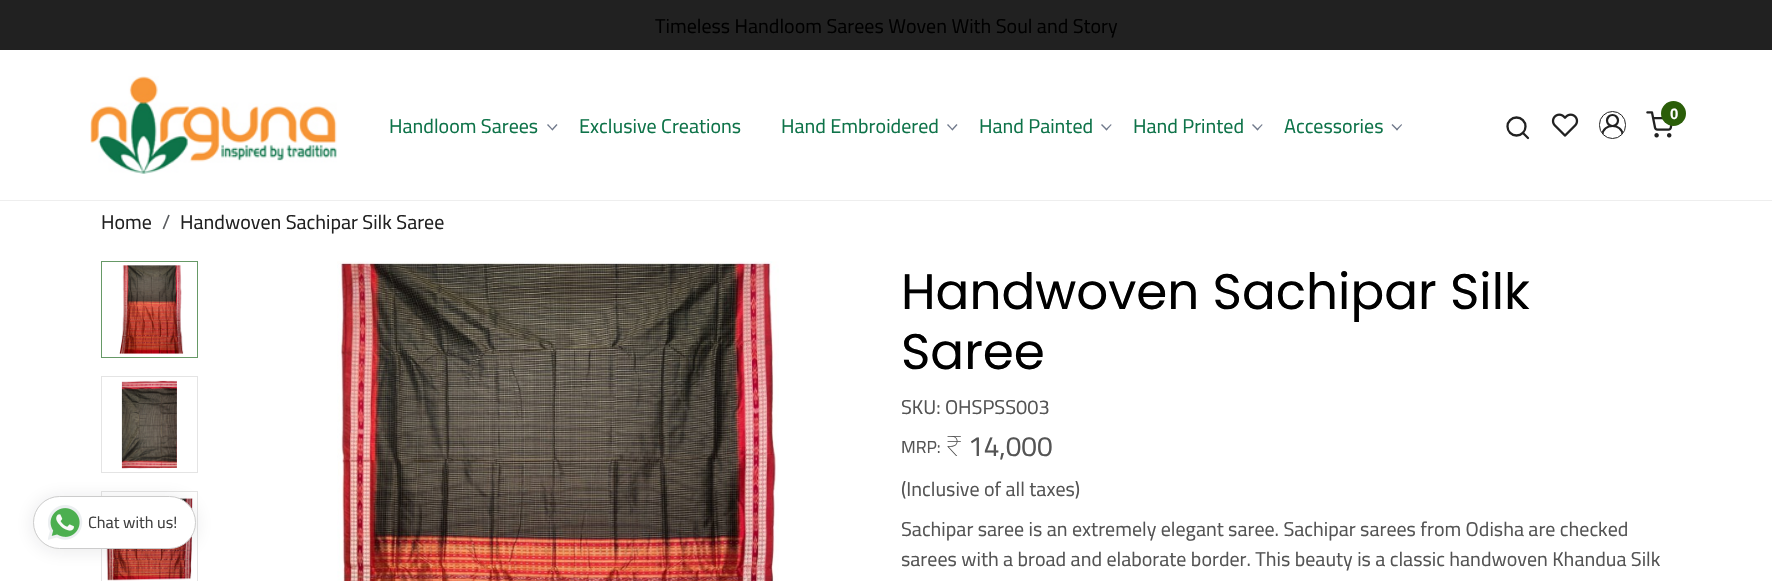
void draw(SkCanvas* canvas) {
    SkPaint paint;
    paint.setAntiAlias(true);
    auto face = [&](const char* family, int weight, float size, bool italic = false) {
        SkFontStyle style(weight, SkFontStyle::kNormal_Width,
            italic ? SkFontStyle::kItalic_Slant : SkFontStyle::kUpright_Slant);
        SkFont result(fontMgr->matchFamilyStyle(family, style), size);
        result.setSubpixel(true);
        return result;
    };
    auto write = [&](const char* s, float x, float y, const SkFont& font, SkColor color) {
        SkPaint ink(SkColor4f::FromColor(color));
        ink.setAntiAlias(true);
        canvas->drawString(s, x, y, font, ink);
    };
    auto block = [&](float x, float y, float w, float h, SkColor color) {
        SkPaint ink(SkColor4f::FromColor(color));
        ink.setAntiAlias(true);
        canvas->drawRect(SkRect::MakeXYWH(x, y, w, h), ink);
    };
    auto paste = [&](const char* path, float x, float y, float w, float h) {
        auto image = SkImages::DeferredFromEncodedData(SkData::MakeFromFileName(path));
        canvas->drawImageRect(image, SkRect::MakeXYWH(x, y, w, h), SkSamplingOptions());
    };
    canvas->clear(SK_ColorWHITE);
    block(0, 0, 1772, 50, SkColorSetRGB(33, 33, 33));
    auto kFont1 = face("Cairo", 400, 20);
    write("Timeless Handloom Sarees Woven With Soul and Story", 655, 33, kFont1, SK_ColorBLACK);
    block(0, 200, 1772, 1, SkColorSetRGB(238, 238, 238));
    paste("pic1.png", 90, 76, 247, 98);
    paint.setStyle(SkPaint::kStroke_Style);
    paint.setStrokeWidth(2.3f);
    paint.setColor(SkColorSetRGB(33, 33, 33));
    canvas->drawCircle(1516.5f, 126.5f, 9, paint);
    paint.setStrokeCap(SkPaint::kRound_Cap);
    paint.setStrokeJoin(SkPaint::kRound_Join);
    canvas->drawPath(SkPathBuilder().moveTo(1528, 138).lineTo(1523, 133).detach(), paint);
    paste("pic2.png", 1551, 113, 28, 24);
    paint.setStrokeWidth(1);
    paint.setStrokeCap(SkPaint::kButt_Cap);
    paint.setStrokeJoin(SkPaint::kMiter_Join);
    canvas->drawRoundRect(SkRect::MakeXYWH(1599.5f, 111.5f, 26, 27), 13, 13, paint);
    canvas->save();
    canvas->clipPath(SkPathBuilder().moveTo(1612.5f, 113).cubicTo(1619.5f, 113, 1625, 118.5f, 1625, 125.5f).cubicTo(1625, 132.5f, 1619.5f, 138, 1612.5f, 138).cubicTo(1605.5f, 138, 1600, 132.5f, 1600, 125.5f).cubicTo(1600, 118.5f, 1605.5f, 113, 1612.5f, 113).close().detach(), true);
    paint.setStrokeWidth(2.2f);
    paint.setStrokeCap(SkPaint::kSquare_Cap);
    canvas->drawPath(SkPathBuilder().moveTo(1602.5f, 135).cubicTo(1602.5f, 123, 1622.5f, 123, 1622.5f, 135).detach(), paint);
    canvas->restore();
    paint.setStrokeCap(SkPaint::kButt_Cap);
    canvas->drawCircle(1612.5f, 120.5f, 5.5f, paint);
    paste("pic3.png", 1646, 111, 27, 27);
    paint.setStyle(SkPaint::kFill_Style);
    paint.setColor(SkColorSetRGB(43, 94, 9));
    canvas->drawCircle(1673.5f, 113.5f, 12.5f, paint);
    auto kFont2 = face("Liberation Sans", 700, 15);
    write("0", 1670, 119, kFont2, SK_ColorWHITE);
    write("Handloom Sarees", 389, 133, kFont1, SkColorSetRGB(14, 115, 73));
    paint.setColor(SkColorSetRGB(112, 121, 139));
    canvas->drawPath(SkPathBuilder().moveTo(556.5f, 124).lineTo(557.5f, 125).lineTo(552.5f, 130.5f).lineTo(551.5f, 129.5f).close().detach(), paint);
    canvas->drawPath(SkPathBuilder().moveTo(548, 124).lineTo(553, 129.5f).lineTo(552.5f, 130.5f).lineTo(547, 125).close().detach(), paint);
    write("Exclusive Creations", 579, 133, kFont1, SkColorSetRGB(14, 115, 73));
    write("Hand Embroidered", 781, 133, kFont1, SkColorSetRGB(14, 115, 73));
    canvas->drawPath(SkPathBuilder().moveTo(956.5f, 124).lineTo(957.5f, 125).lineTo(952.5f, 130.5f).lineTo(951.5f, 129.5f).close().detach(), paint);
    canvas->drawPath(SkPathBuilder().moveTo(948, 124).lineTo(953, 129.5f).lineTo(952.5f, 130.5f).lineTo(947, 125).close().detach(), paint);
    write("Hand Painted", 979, 133, kFont1, SkColorSetRGB(14, 115, 73));
    canvas->drawPath(SkPathBuilder().moveTo(1111, 124).lineTo(1111.5f, 125).lineTo(1106.5f, 130.5f).lineTo(1105.5f, 129.5f).close().detach(), paint);
    canvas->drawPath(SkPathBuilder().moveTo(1102, 124).lineTo(1107.5f, 129.5f).lineTo(1106.5f, 130.5f).lineTo(1101, 125).close().detach(), paint);
    write("Hand Printed", 1133, 133, kFont1, SkColorSetRGB(14, 115, 73));
    canvas->drawPath(SkPathBuilder().moveTo(1262, 124).lineTo(1262.5f, 125).lineTo(1257.5f, 130.5f).lineTo(1256.5f, 129.5f).close().detach(), paint);
    canvas->drawPath(SkPathBuilder().moveTo(1253, 124).lineTo(1258.5f, 129.5f).lineTo(1257.5f, 130.5f).lineTo(1252, 125).close().detach(), paint);
    write("Accessories", 1284, 133, kFont1, SkColorSetRGB(14, 115, 73));
    canvas->drawPath(SkPathBuilder().moveTo(1401.5f, 124).lineTo(1402, 125).lineTo(1397, 130.5f).lineTo(1396, 129.5f).close().detach(), paint);
    canvas->drawPath(SkPathBuilder().moveTo(1392.5f, 124).lineTo(1398, 129.5f).lineTo(1397, 130.5f).lineTo(1391.5f, 125).close().detach(), paint);
    write("Home", 101, 229, kFont1, SkColorSetRGB(33, 33, 33));
    write("/", 162, 229, kFont1, SkColorSetRGB(89, 92, 95));
    write("Handwoven Sachipar Silk Saree", 180, 229, kFont1, SkColorSetRGB(33, 33, 33));
    paint.setStyle(SkPaint::kStroke_Style);
    paint.setStrokeWidth(1);
    paint.setColor(SkColorSetRGB(102, 153, 102));
    canvas->drawRect(SkRect::MakeXYWH(101.5f, 261.5f, 96, 96), paint);
    paste("pic4.png", 119, 265, 65, 89);
    paint.setColor(SkColorSetRGB(228, 228, 228));
    canvas->drawRect(SkRect::MakeXYWH(101.5f, 376.5f, 96, 96), paint);
    paste("pic5.png", 121, 380, 56, 89);
    canvas->drawRect(SkRect::MakeXYWH(101.5f, 491.5f, 96, 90), paint);
    paste("pic6.png", 106, 498, 87, 83);
    paste("pic7.png", 337, 261, 442, 320);
    auto kFont3 = face("Poppins", 400, 50);
    write("Handwoven Sachipar Silk", 901, 309, kFont3, SK_ColorBLACK);
    write("Saree", 901, 369, kFont3, SK_ColorBLACK);
    write("SKU: OHSPSS003", 901, 414, kFont1, SkColorSetRGB(84, 84, 84));
    auto kFont4 = face("Cairo", 400, 17.5f);
    write("MRP:", 901, 453, kFont4, SkColorSetRGB(84, 84, 84));
    auto kFont5 = face("Noto Sans", 100, 28);
    write("₹", 946, 456, kFont5, SkColorSetRGB(84, 84, 84));
    auto kFont6 = face("Cairo", 400, 28);
    write("14,000", 968, 456, kFont6, SkColorSetRGB(84, 84, 84));
    write("(Inclusive of all taxes)", 901, 496, kFont1, SkColorSetRGB(84, 84, 84));
    write("Sachipar saree is an extremely elegant saree. Sachipar sarees from Odisha are checked", 901, 536, kFont1, SkColorSetRGB(84, 84, 84));
    write("sarees with a broad and elaborate border. This beauty is a classic handwoven Khandua Silk", 901, 566, kFont1, SkColorSetRGB(84, 84, 84));
    paint.setStyle(SkPaint::kFill_Style);
    paint.setColor(SkColorSetARGB(26, 32, 33, 36));
    paint.setMaskFilter(SkMaskFilter::MakeBlur(kNormal_SkBlurStyle, 9.5f));
    canvas->drawRoundRect(SkRect::MakeXYWH(33, 498, 163, 52), 26, 26, paint);
    paint.setMaskFilter(nullptr);
    paint.setColor(SK_ColorWHITE);
    canvas->drawRoundRect(SkRect::MakeXYWH(33.5f, 496.5f, 162, 52), 26, 26, paint);
    paint.setStyle(SkPaint::kStroke_Style);
    paint.setColor(SkColorSetRGB(204, 204, 204));
    canvas->drawRoundRect(SkRect::MakeXYWH(33.5f, 496.5f, 162, 52), 26, 26, paint);
    paste("pic8.png", 48, 505, 35, 35);
    auto kFont7 = face("Cairo", 400, 16.25f);
    write("Chat with us!", 88, 528, kFont7, SkColorSetRGB(64, 64, 64));
}
